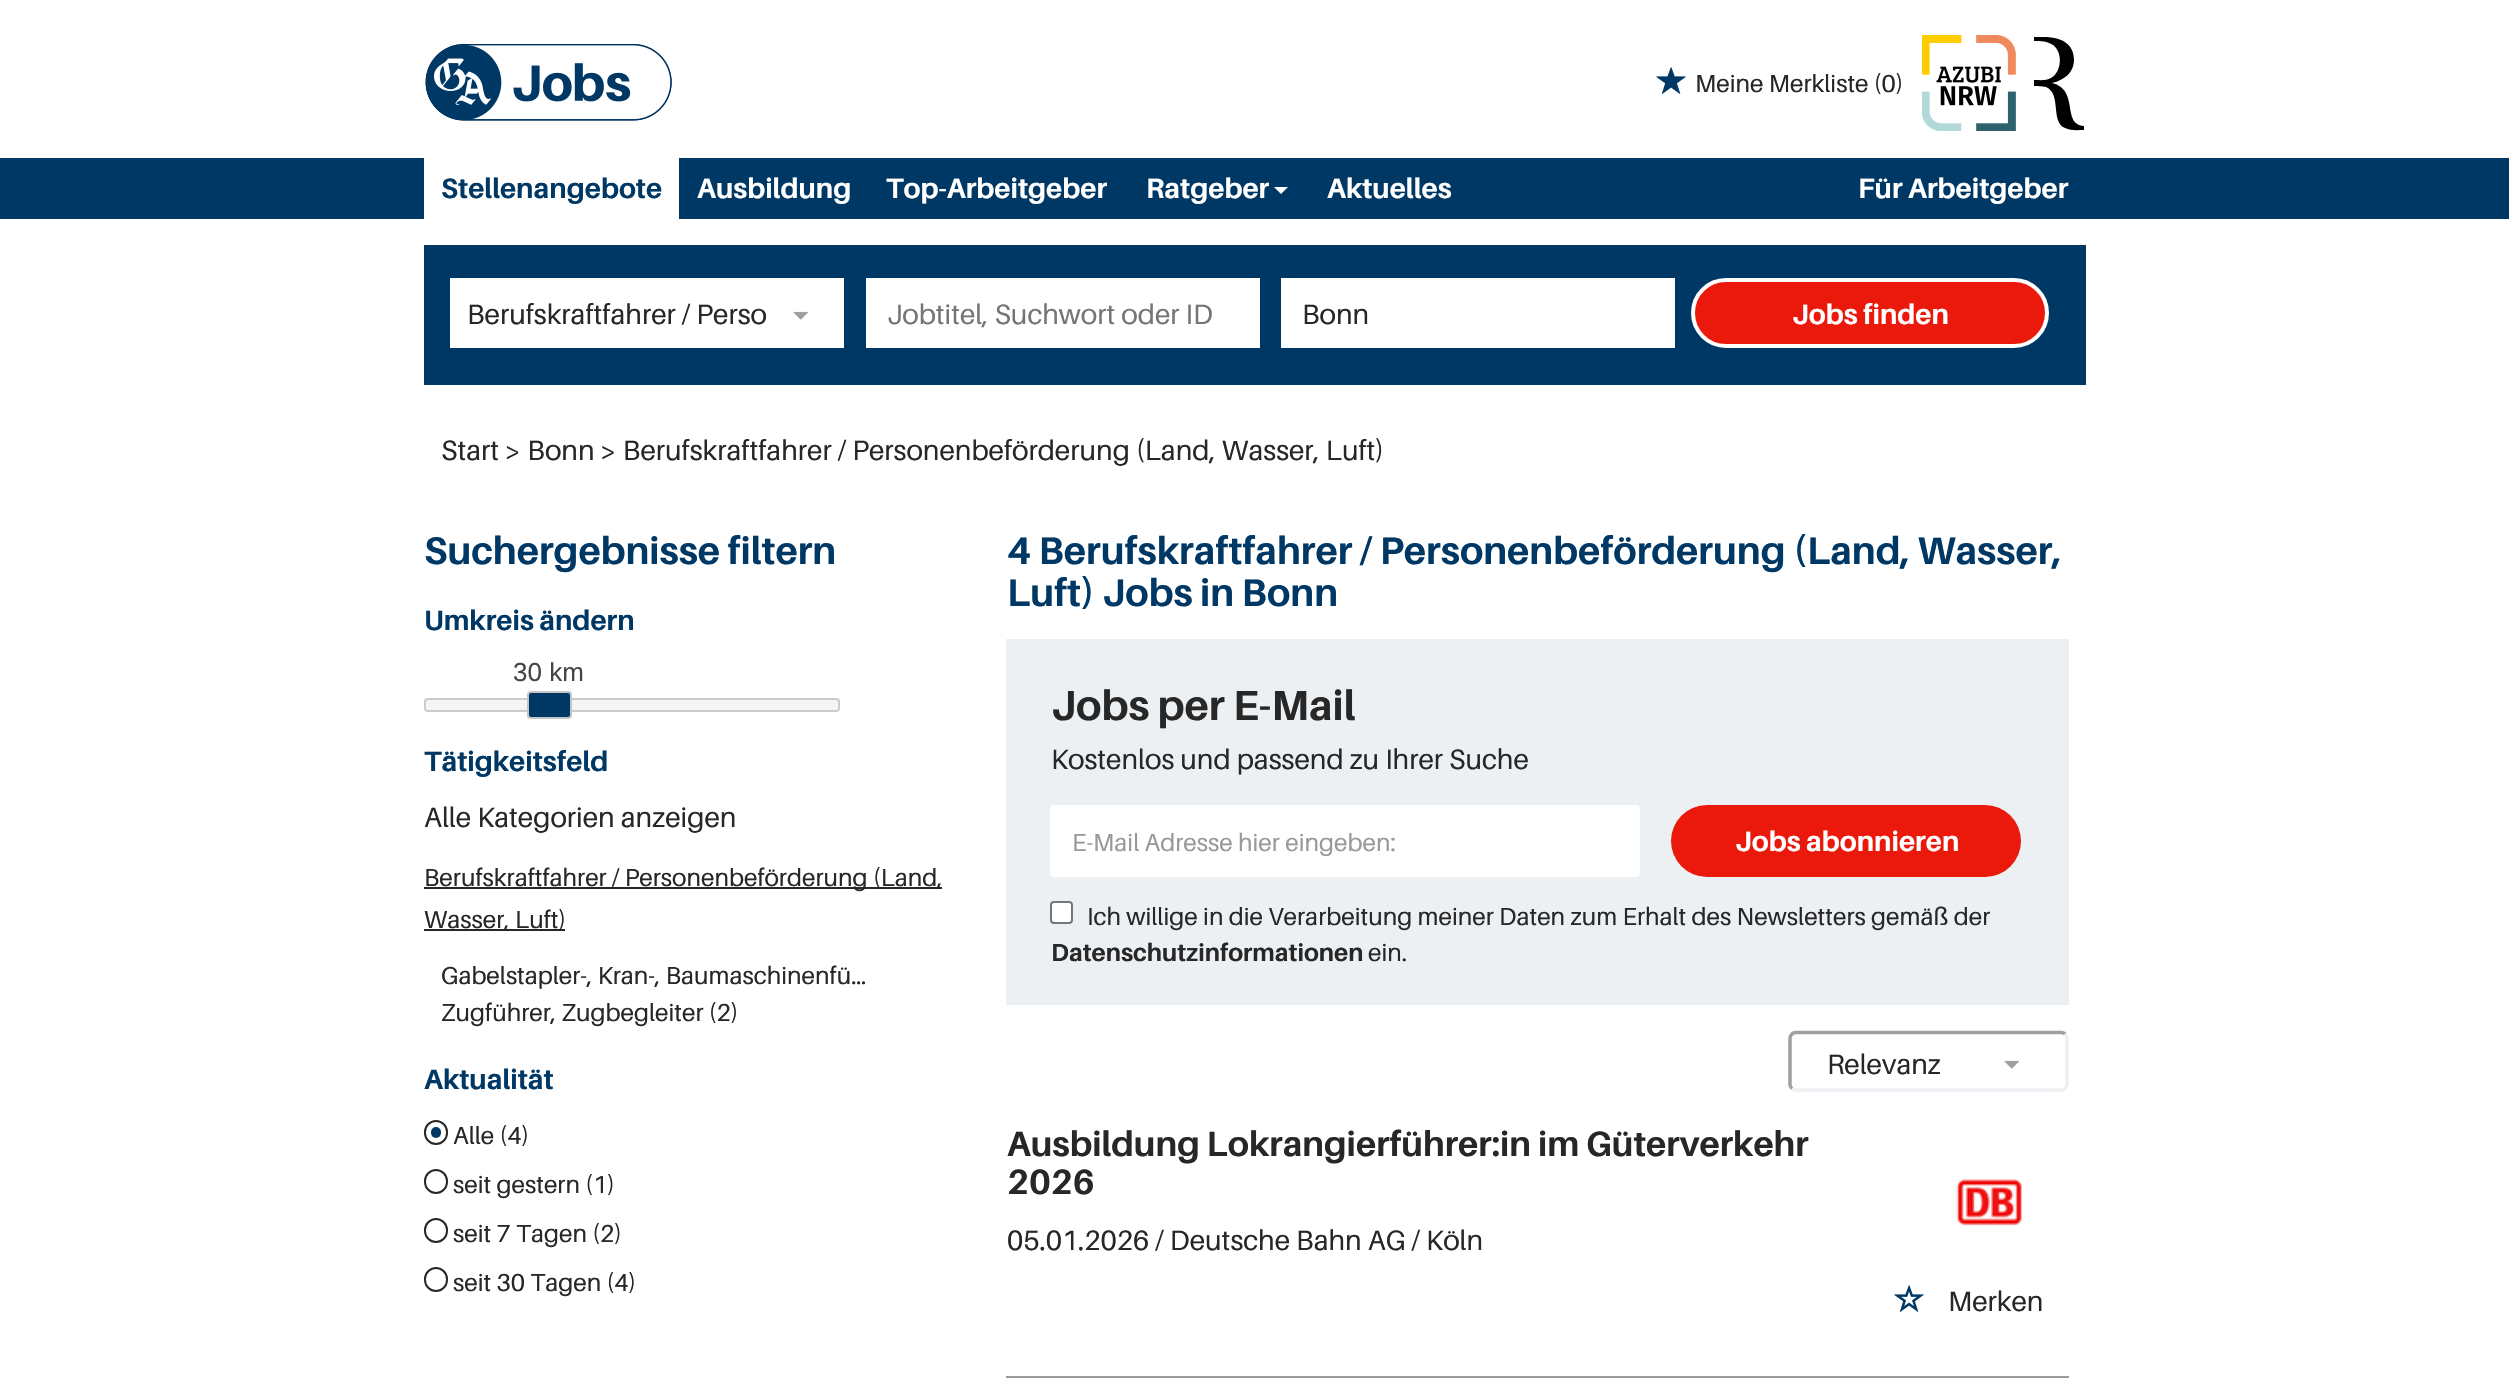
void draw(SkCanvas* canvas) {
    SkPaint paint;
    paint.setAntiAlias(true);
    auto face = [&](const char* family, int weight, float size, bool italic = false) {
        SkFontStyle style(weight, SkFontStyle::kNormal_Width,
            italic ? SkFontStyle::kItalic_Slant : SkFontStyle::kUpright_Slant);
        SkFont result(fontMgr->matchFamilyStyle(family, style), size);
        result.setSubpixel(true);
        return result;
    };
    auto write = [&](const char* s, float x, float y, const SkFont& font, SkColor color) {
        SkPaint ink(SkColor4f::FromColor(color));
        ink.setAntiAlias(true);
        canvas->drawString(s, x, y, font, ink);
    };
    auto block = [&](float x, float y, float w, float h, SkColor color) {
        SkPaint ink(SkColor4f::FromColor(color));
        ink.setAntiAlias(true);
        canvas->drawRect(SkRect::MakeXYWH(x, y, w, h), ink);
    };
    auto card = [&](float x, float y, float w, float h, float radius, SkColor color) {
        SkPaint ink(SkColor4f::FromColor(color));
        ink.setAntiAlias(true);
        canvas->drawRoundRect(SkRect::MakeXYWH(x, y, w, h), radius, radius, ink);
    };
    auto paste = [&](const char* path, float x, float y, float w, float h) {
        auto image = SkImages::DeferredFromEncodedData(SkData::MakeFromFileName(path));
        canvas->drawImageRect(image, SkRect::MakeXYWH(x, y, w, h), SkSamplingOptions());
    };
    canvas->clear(SK_ColorWHITE);
    paste("pic1.png", 425, 44, 247, 77);
    paste("pic2.png", 1656, 67, 30, 27);
    auto kFont1 = face("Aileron", 400, 24.5f);
    write("Meine Merkliste (0)", 1695, 92, kFont1, SkColorSetRGB(39, 39, 39));
    paste("pic3.png", 1922, 35, 94, 96);
    paint.setColor(SK_ColorBLACK);
    canvas->drawPath(SkPathBuilder().moveTo(2034, 85).lineTo(2034, 80).cubicTo(2040, 80, 2046, 81, 2051, 78).cubicTo(2062, 72, 2063, 52, 2053, 45).cubicTo(2047, 41, 2041, 41, 2034, 41).lineTo(2034, 37).lineTo(2043, 37).cubicTo(2066, 37, 2074, 47, 2074, 60).cubicTo(2074, 72, 2065, 80, 2052, 83).cubicTo(2080, 90, 2061, 124, 2084, 126).lineTo(2084, 130).cubicTo(2078, 130, 2071, 131, 2065, 128).cubicTo(2050, 122, 2062, 94, 2046, 87).cubicTo(2042, 86, 2038, 86, 2034, 86).close().detach(), paint);
    block(0, 158, 2509, 61, SkColorSetRGB(0, 56, 101));
    block(424, 158, 255, 61, SK_ColorWHITE);
    auto kFont2 = face("Aileron", 700, 28);
    write("Stellenangebote", 441, 198, kFont2, SkColorSetRGB(0, 56, 101));
    write("Ausbildung", 697, 198, kFont2, SK_ColorWHITE);
    write("Top-Arbeitgeber", 886, 198, kFont2, SK_ColorWHITE);
    write("Ratgeber", 1146, 198, kFont2, SK_ColorWHITE);
    paint.setColor(SK_ColorWHITE);
    canvas->drawPath(SkPathBuilder().moveTo(1274, 187).lineTo(1288, 187).lineTo(1281, 194).close().detach(), paint);
    write("Aktuelles", 1327, 198, kFont2, SK_ColorWHITE);
    write("Für Arbeitgeber", 1858, 198, kFont2, SK_ColorWHITE);
    block(424, 245, 1662, 140, SkColorSetRGB(0, 56, 101));
    block(450, 278, 394, 70, SK_ColorWHITE);
    auto kFont3 = face("Aileron", 400, 28);
    write("Berufskraftfahrer / Perso", 467, 324, kFont3, SkColorSetRGB(39, 39, 39));
    paste("pic4.png", 793, 311, 15, 9);
    block(866, 278, 394, 70, SK_ColorWHITE);
    write("Jobtitel, Suchwort oder ID", 887, 324, kFont3, SkColorSetRGB(117, 117, 117));
    block(1281, 278, 394, 70, SK_ColorWHITE);
    write("Bonn", 1302, 324, kFont3, SkColorSetRGB(39, 39, 39));
    paint.setColor(SkColorSetRGB(235, 24, 12));
    canvas->drawRoundRect(SkRect::MakeXYWH(1693, 280, 354, 66), 33, 33, paint);
    paint.setStyle(SkPaint::kStroke_Style);
    paint.setStrokeWidth(4);
    paint.setColor(SK_ColorWHITE);
    canvas->drawRoundRect(SkRect::MakeXYWH(1693, 280, 354, 66), 33, 33, paint);
    write("Jobs finden", 1792, 324, kFont2, SK_ColorWHITE);
    write("Start > Bonn > Berufskraftfahrer / Personenbeförderung (Land, Wasser, Luft)", 441, 460, kFont3, SkColorSetRGB(39, 39, 39));
    auto kFont4 = face("Aileron", 700, 38.5f);
    write("Suchergebnisse filtern", 424, 564, kFont4, SkColorSetRGB(0, 56, 101));
    write("Umkreis ändern", 424, 630, kFont2, SkColorSetRGB(0, 56, 101));
    paint.setStyle(SkPaint::kFill_Style);
    paint.setColor(SkColorSetRGB(245, 245, 245));
    canvas->drawRoundRect(SkRect::MakeXYWH(425, 699, 414, 12), 3, 3, paint);
    paint.setStyle(SkPaint::kStroke_Style);
    paint.setStrokeWidth(2);
    paint.setColor(SkColorSetRGB(204, 204, 204));
    canvas->drawRoundRect(SkRect::MakeXYWH(425, 699, 414, 12), 3, 3, paint);
    paint.setStyle(SkPaint::kFill_Style);
    paint.setColor(SkColorSetRGB(0, 56, 101));
    canvas->drawRoundRect(SkRect::MakeXYWH(528, 692, 43, 26), 3, 3, paint);
    paint.setStyle(SkPaint::kStroke_Style);
    paint.setColor(SkColorSetRGB(197, 197, 197));
    canvas->drawRoundRect(SkRect::MakeXYWH(528, 692, 43, 26), 3, 3, paint);
    auto kFont5 = face("Liberation Sans", 400, 26);
    write("30 km", 513, 681, kFont5, SkColorSetRGB(69, 69, 69));
    write("Tätigkeitsfeld", 424, 771, kFont2, SkColorSetRGB(0, 56, 101));
    write("Alle Kategorien anzeigen", 424, 827, kFont3, SkColorSetRGB(39, 39, 39));
    block(424, 887, 518, 2, SkColorSetRGB(39, 39, 39));
    write("Berufskraftfahrer / Personenbeförderung (Land,", 424, 886, kFont1, SkColorSetRGB(39, 39, 39));
    block(424, 929, 141, 2, SkColorSetRGB(39, 39, 39));
    write("Wasser, Luft)", 424, 928, kFont1, SkColorSetRGB(39, 39, 39));
    write("Gabelstapler-, Kran-, Baumaschinenfü…", 441, 984, kFont1, SkColorSetRGB(39, 39, 39));
    write("Zugführer, Zugbegleiter (2)", 441, 1021, kFont1, SkColorSetRGB(39, 39, 39));
    write("Aktualität", 424, 1089, kFont2, SkColorSetRGB(0, 56, 101));
    card(431, 1127, 10, 11, 5, SkColorSetRGB(0, 56, 101));
    paint.setColor(SkColorSetRGB(39, 39, 39));
    canvas->drawRoundRect(SkRect::MakeXYWH(425, 1121, 22, 23), 11, 11, paint);
    write("Alle (4)", 453, 1144, kFont1, SkColorSetRGB(39, 39, 39));
    canvas->drawRoundRect(SkRect::MakeXYWH(425, 1170, 22, 23), 11, 11, paint);
    write("seit gestern (1)", 453, 1193, kFont1, SkColorSetRGB(39, 39, 39));
    canvas->drawRoundRect(SkRect::MakeXYWH(425, 1219, 22, 23), 11, 11, paint);
    write("seit 7 Tagen (2)", 453, 1242, kFont1, SkColorSetRGB(39, 39, 39));
    canvas->drawRoundRect(SkRect::MakeXYWH(425, 1268, 22, 23), 11, 11, paint);
    write("seit 30 Tagen (4)", 453, 1291, kFont1, SkColorSetRGB(39, 39, 39));
    write("4 Berufskraftfahrer / Personenbeförderung (Land, Wasser,", 1007, 564, kFont4, SkColorSetRGB(0, 56, 101));
    write("Luft) Jobs in Bonn", 1007, 606, kFont4, SkColorSetRGB(0, 56, 101));
    block(1006, 639, 1063, 366, SkColorSetRGB(237, 240, 243));
    auto kFont6 = face("Aileron", 700, 42);
    write("Jobs per E-Mail", 1051, 720, kFont6, SkColorSetRGB(39, 39, 39));
    write("Kostenlos und passend zu Ihrer Suche", 1051, 769, kFont3, SkColorSetRGB(39, 39, 39));
    card(1050, 805, 590, 72, 4, SK_ColorWHITE);
    canvas->save();
    canvas->clipRect(SkRect::MakeXYWH(1071, 826, 548, 30));
    write("E-Mail Adresse hier eingeben:", 1072, 851, kFont1, SkColorSetRGB(153, 153, 153));
    canvas->restore();
    card(1671, 805, 350, 72, 36, SkColorSetRGB(235, 24, 12));
    write("Jobs abonnieren", 1735, 851, kFont2, SK_ColorWHITE);
    paint.setStyle(SkPaint::kFill_Style);
    paint.setColor(SK_ColorWHITE);
    canvas->drawRoundRect(SkRect::MakeXYWH(1051, 902, 21, 21), 3, 3, paint);
    paint.setStyle(SkPaint::kStroke_Style);
    paint.setColor(SkColorSetRGB(118, 118, 118));
    canvas->drawRoundRect(SkRect::MakeXYWH(1051, 902, 21, 21), 3, 3, paint);
    write("Ich willige in die Verarbeitung meiner Daten zum Erhalt des Newsletters gemäß der", 1087, 925, kFont1, SkColorSetRGB(39, 39, 39));
    auto kFont7 = face("Aileron", 700, 24.5f);
    write("Datenschutzinformationen", 1051, 961, kFont7, SkColorSetRGB(39, 39, 39));
    write("ein.", 1368, 961, kFont1, SkColorSetRGB(39, 39, 39));
    paint.setStrokeWidth(3.5f);
    paint.setColor(SkColorSetRGB(237, 240, 243));
    canvas->drawPath(SkPathBuilder().moveTo(2065, 1034).cubicTo(2066, 1035, 2067, 1036.5f, 2067, 1038).lineTo(2067, 1085).cubicTo(2067, 1086.5f, 2066, 1087.5f, 2065, 1088.5f).cubicTo(2064, 1089.5f, 2063, 1090, 2061.5f, 1090).lineTo(1795.5f, 1090).cubicTo(1794, 1090, 1793, 1089.5f, 1792, 1088.5f).detach(), paint);
    paint.setColor(SkColorSetRGB(158, 160, 162));
    canvas->drawPath(SkPathBuilder().moveTo(1792, 1088.5f).cubicTo(1791, 1087.5f, 1790, 1086.5f, 1790, 1085).lineTo(1790, 1038).cubicTo(1790, 1036.5f, 1791, 1035, 1792, 1034).cubicTo(1793, 1033, 1794, 1032.5f, 1795.5f, 1032.5f).lineTo(2061.5f, 1032.5f).cubicTo(2063, 1032.5f, 2064, 1033, 2065, 1034).detach(), paint);
    write("Relevanz", 1827, 1074, kFont3, SkColorSetRGB(39, 39, 39));
    paste("pic4.png", 2004, 1060, 15, 9);
    auto kFont8 = face("Aileron", 700, 35);
    write("Ausbildung Lokrangierführer:in im Güterverkehr", 1007, 1156, kFont8, SkColorSetRGB(39, 39, 39));
    write("2026", 1007, 1194, kFont8, SkColorSetRGB(39, 39, 39));
    paste("pic5.png", 1956, 1179, 66, 47);
    write("05.01.2026 / Deutsche Bahn AG / Köln", 1007, 1250, kFont3, SkColorSetRGB(39, 39, 39));
    paste("pic6.png", 1894, 1285, 30, 27);
    write("Merken", 1948, 1311, kFont3, SkColorSetRGB(39, 39, 39));
    block(1006, 1376, 1063, 2, SkColorSetRGB(155, 155, 155));
}
